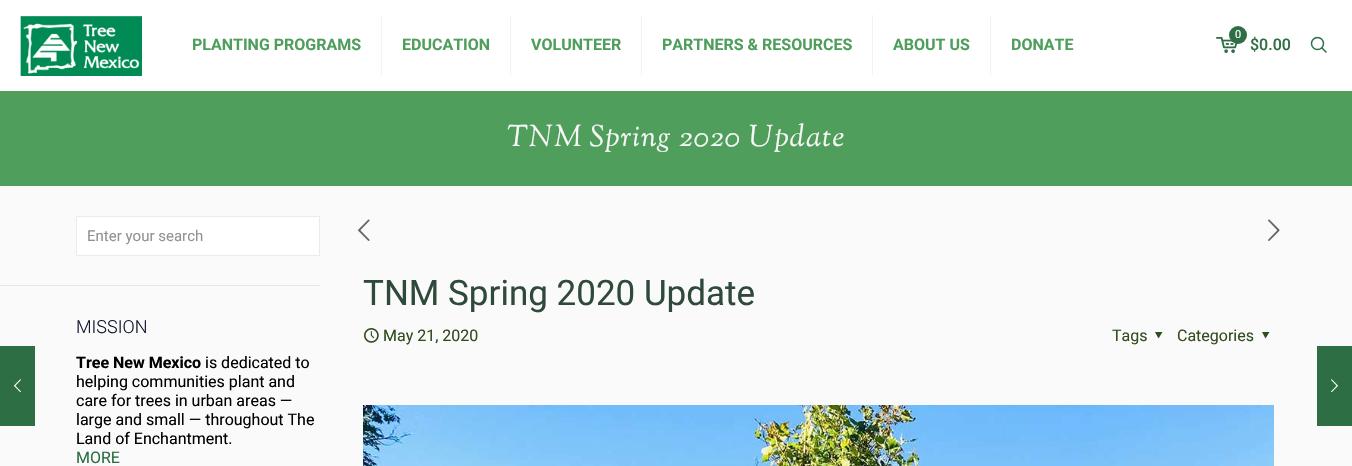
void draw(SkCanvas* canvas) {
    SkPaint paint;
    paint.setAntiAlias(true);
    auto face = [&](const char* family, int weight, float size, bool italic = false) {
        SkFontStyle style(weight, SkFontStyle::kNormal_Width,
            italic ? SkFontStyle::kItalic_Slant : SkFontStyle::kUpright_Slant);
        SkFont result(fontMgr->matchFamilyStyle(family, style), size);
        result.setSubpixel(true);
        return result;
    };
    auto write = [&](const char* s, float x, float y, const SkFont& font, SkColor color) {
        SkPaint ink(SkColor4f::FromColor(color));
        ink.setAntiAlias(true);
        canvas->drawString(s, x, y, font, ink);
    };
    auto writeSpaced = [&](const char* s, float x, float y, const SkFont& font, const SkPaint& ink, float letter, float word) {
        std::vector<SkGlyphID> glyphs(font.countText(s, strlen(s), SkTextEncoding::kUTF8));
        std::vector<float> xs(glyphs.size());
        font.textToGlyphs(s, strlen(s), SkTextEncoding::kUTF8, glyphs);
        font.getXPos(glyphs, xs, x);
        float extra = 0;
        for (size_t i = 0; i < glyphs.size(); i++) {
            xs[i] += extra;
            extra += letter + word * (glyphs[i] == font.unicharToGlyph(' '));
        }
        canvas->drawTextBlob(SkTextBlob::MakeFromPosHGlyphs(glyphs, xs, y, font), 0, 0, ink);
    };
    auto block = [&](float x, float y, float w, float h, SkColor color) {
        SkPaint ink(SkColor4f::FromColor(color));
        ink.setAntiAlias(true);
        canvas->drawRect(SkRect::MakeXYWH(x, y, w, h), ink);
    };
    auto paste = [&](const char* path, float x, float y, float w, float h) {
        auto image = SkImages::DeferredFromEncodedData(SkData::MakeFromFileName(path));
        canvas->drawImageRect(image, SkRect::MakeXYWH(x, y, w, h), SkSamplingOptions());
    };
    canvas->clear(SK_ColorWHITE);
    block(0, 186, 1352, 280, SkColorSetRGB(249, 250, 249));
    block(0, 346, 35, 80, SkColorSetRGB(46, 110, 68));
    paste("pic1.png", 14, 379, 7, 14);
    paste("pic2.png", 20, 16, 122, 60);
    block(381, 15, 1, 60, SkColorSetRGB(242, 242, 242));
    auto kFont1 = face("Roboto", 700, 16);
    write("PLANTING PROGRAMS", 192, 50, kFont1, SkColorSetRGB(79, 158, 91));
    block(510, 15, 1, 60, SkColorSetRGB(242, 242, 242));
    write("EDUCATION", 402, 50, kFont1, SkColorSetRGB(79, 158, 91));
    block(641, 15, 1, 60, SkColorSetRGB(242, 242, 242));
    write("VOLUNTEER", 531, 50, kFont1, SkColorSetRGB(79, 158, 91));
    block(872, 15, 1, 60, SkColorSetRGB(242, 242, 242));
    write("PARTNERS & RESOURCES", 662, 50, kFont1, SkColorSetRGB(79, 158, 91));
    block(990, 15, 1, 60, SkColorSetRGB(242, 242, 242));
    write("ABOUT US", 893, 50, kFont1, SkColorSetRGB(79, 158, 91));
    write("DONATE", 1011, 50, kFont1, SkColorSetRGB(79, 158, 91));
    paste("pic3.png", 1216, 37, 22, 16);
    paint.setColor(SkColorSetRGB(46, 110, 68));
    canvas->drawCircle(1238, 35, 9, paint);
    auto kFont2 = face("Roboto", 400, 11);
    write("0", 1235, 38, kFont2, SK_ColorWHITE);
    auto kFont3 = face("Roboto", 500, 16);
    write("$0.00", 1250, 50, kFont3, SkColorSetRGB(46, 110, 68));
    paint.setStyle(SkPaint::kStroke_Style);
    paint.setStrokeWidth(1.5f);
    canvas->drawCircle(1317.5f, 43.5f, 6, paint);
    canvas->drawPath(SkPathBuilder().moveTo(1321.5f, 47.5f).lineTo(1326.5f, 52.5f).detach(), paint);
    block(0, 91, 1352, 95, SkColorSetRGB(79, 158, 91));
    auto kFont4 = face("Sorts Mill Goudy", 400, 30, true);
    paint.setStyle(SkPaint::kFill_Style);
    paint.setColor(SkColorSetRGB(247, 247, 247));
    writeSpaced("TNM Spring 2020 Update", 507, 146, kFont4, paint, 1, 0);
    paint.setColor(SK_ColorWHITE);
    canvas->drawRect(SkRect::MakeXYWH(76.5f, 216.5f, 243, 39), paint);
    paint.setStyle(SkPaint::kStroke_Style);
    paint.setStrokeWidth(1);
    paint.setColor(SkColorSetRGB(235, 235, 235));
    canvas->drawRect(SkRect::MakeXYWH(76.5f, 216.5f, 243, 39), paint);
    auto kFont5 = face("Roboto", 400, 15);
    write("Enter your search", 87, 241, kFont5, SkColorSetRGB(146, 146, 146));
    block(0, 285, 320, 1, SkColorSetRGB(229, 230, 229));
    auto kFont6 = face("Roboto", 300, 18);
    write("MISSION", 76, 333, kFont6, SkColorSetRGB(19, 21, 46));
    write("Tree New Mexico", 76, 368, kFont1, SK_ColorBLACK);
    auto kFont7 = face("Roboto", 400, 16);
    write("is dedicated to", 205, 368, kFont7, SK_ColorBLACK);
    write("helping communities plant and", 76, 387, kFont7, SK_ColorBLACK);
    write("care for trees in urban areas —", 76, 406, kFont7, SK_ColorBLACK);
    write("large and small — throughout The", 76, 425, kFont7, SK_ColorBLACK);
    write("Land of Enchantment.", 76, 444, kFont7, SK_ColorBLACK);
    write("MORE", 76, 463, kFont7, SkColorSetRGB(46, 110, 68));
    paste("pic4.png", 358, 219, 12, 22);
    paste("pic5.png", 1268, 219, 12, 22);
    auto kFont8 = face("Roboto", 400, 35);
    write("TNM Spring 2020 Update", 363, 305, kFont8, SkColorSetRGB(47, 74, 58));
    paste("pic6.png", 364, 328, 15, 15);
    write("May 21, 2020", 383, 341, kFont7, SkColorSetRGB(49, 76, 31));
    write("Tags", 1112, 341, kFont7, SkColorSetRGB(49, 76, 31));
    paint.setStyle(SkPaint::kFill_Style);
    paint.setColor(SkColorSetRGB(49, 76, 31));
    canvas->drawPath(SkPathBuilder().moveTo(1162.5f, 332).lineTo(1158.5f, 338.5f).lineTo(1155, 332).close().detach(), paint);
    write("Categories", 1177, 341, kFont7, SkColorSetRGB(49, 76, 31));
    canvas->drawPath(SkPathBuilder().moveTo(1269.5f, 332).lineTo(1265.5f, 338.5f).lineTo(1262, 332).close().detach(), paint);
    paste("pic7.png", 363, 405, 911, 61);
    block(1317, 346, 35, 80, SkColorSetRGB(46, 110, 68));
    paste("pic8.png", 1331, 379, 7, 14);
}
